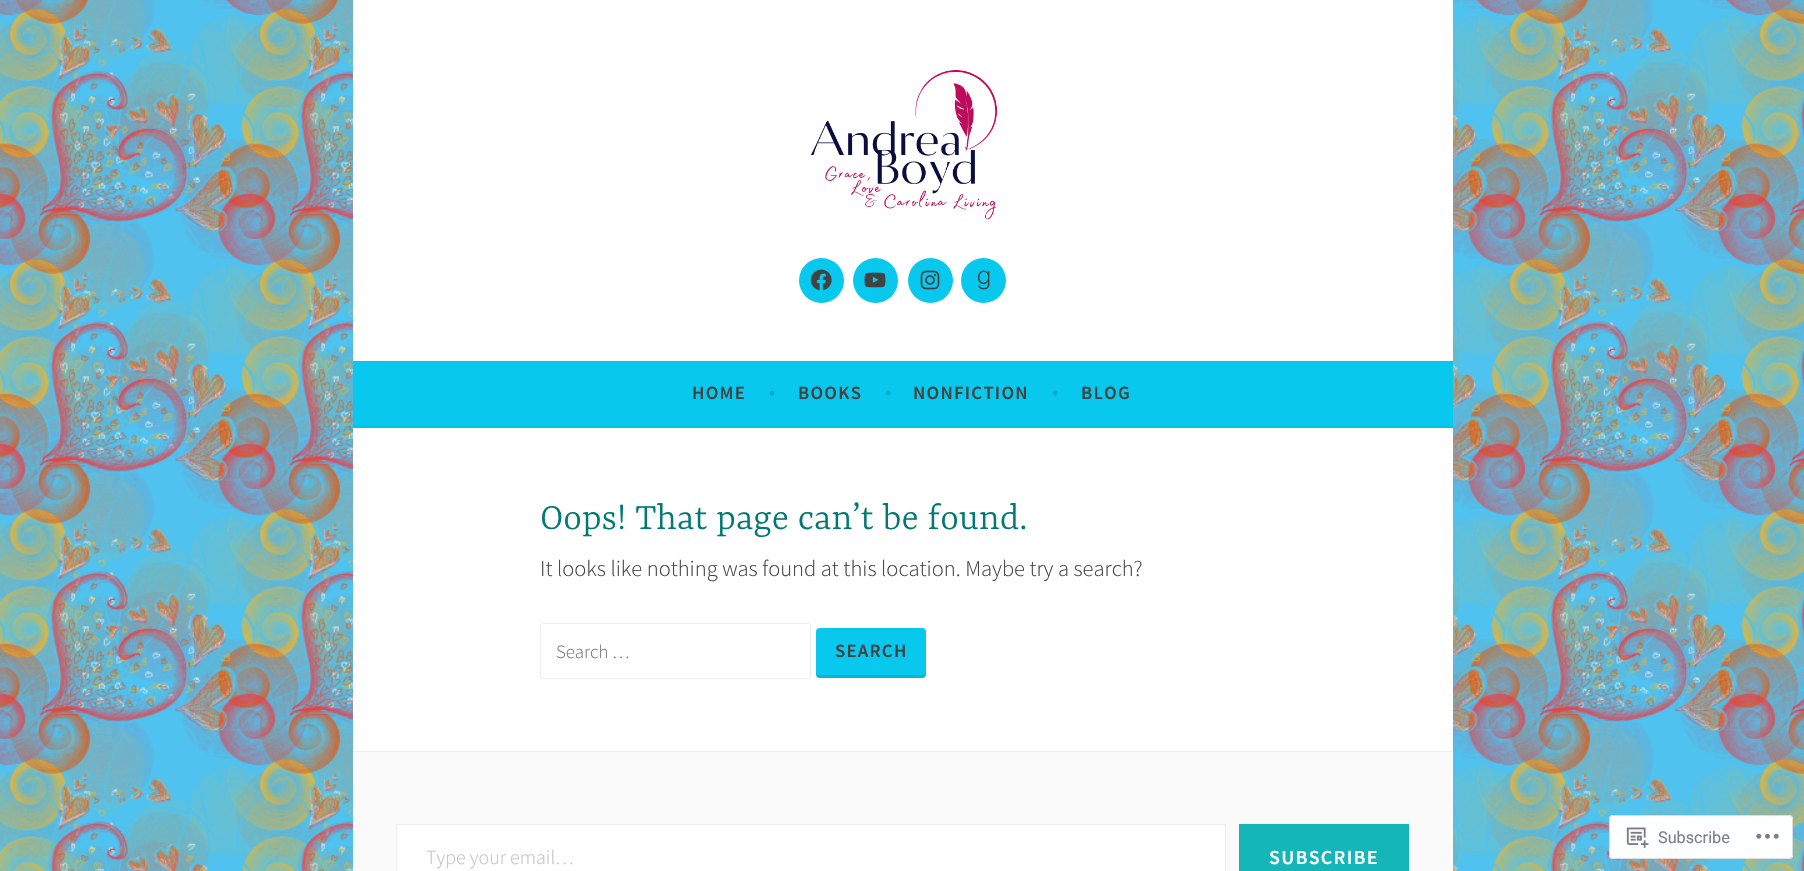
void draw(SkCanvas* canvas) {
    SkPaint paint;
    paint.setAntiAlias(true);
    auto face = [&](const char* family, int weight, float size, bool italic = false) {
        SkFontStyle style(weight, SkFontStyle::kNormal_Width,
            italic ? SkFontStyle::kItalic_Slant : SkFontStyle::kUpright_Slant);
        SkFont result(fontMgr->matchFamilyStyle(family, style), size);
        result.setSubpixel(true);
        return result;
    };
    auto write = [&](const char* s, float x, float y, const SkFont& font, SkColor color) {
        SkPaint ink(SkColor4f::FromColor(color));
        ink.setAntiAlias(true);
        canvas->drawString(s, x, y, font, ink);
    };
    auto writeSpaced = [&](const char* s, float x, float y, const SkFont& font, const SkPaint& ink, float letter, float word) {
        std::vector<SkGlyphID> glyphs(font.countText(s, strlen(s), SkTextEncoding::kUTF8));
        std::vector<float> xs(glyphs.size());
        font.textToGlyphs(s, strlen(s), SkTextEncoding::kUTF8, glyphs);
        font.getXPos(glyphs, xs, x);
        float extra = 0;
        for (size_t i = 0; i < glyphs.size(); i++) {
            xs[i] += extra;
            extra += letter + word * (glyphs[i] == font.unicharToGlyph(' '));
        }
        canvas->drawTextBlob(SkTextBlob::MakeFromPosHGlyphs(glyphs, xs, y, font), 0, 0, ink);
    };
    auto block = [&](float x, float y, float w, float h, SkColor color) {
        SkPaint ink(SkColor4f::FromColor(color));
        ink.setAntiAlias(true);
        canvas->drawRect(SkRect::MakeXYWH(x, y, w, h), ink);
    };
    auto card = [&](float x, float y, float w, float h, float radius, SkColor color) {
        SkPaint ink(SkColor4f::FromColor(color));
        ink.setAntiAlias(true);
        canvas->drawRoundRect(SkRect::MakeXYWH(x, y, w, h), radius, radius, ink);
    };
    auto paste = [&](const char* path, float x, float y, float w, float h) {
        auto image = SkImages::DeferredFromEncodedData(SkData::MakeFromFileName(path));
        canvas->drawImageRect(image, SkRect::MakeXYWH(x, y, w, h), SkSamplingOptions());
    };
    canvas->clear(SK_ColorWHITE);
    paste("pic1.png", 0, 0, 1804, 871);
    block(353, 0, 1100, 361, SK_ColorWHITE);
    paste("pic2.png", 810, 70, 188, 150);
    paint.setColor(SkColorSetRGB(8, 200, 238));
    canvas->drawCircle(821.5f, 280.5f, 22.5f, paint);
    paste("pic3.png", 810, 269, 22, 22);
    canvas->drawCircle(875.5f, 280.5f, 22.5f, paint);
    paste("pic4.png", 864, 272, 22, 16);
    canvas->drawCircle(930.5f, 280.5f, 22.5f, paint);
    paste("pic5.png", 920, 270, 20, 20);
    canvas->drawCircle(983.5f, 280.5f, 22.5f, paint);
    paste("pic6.png", 977, 270, 13, 20);
    block(353, 361, 1100, 64, SkColorSetRGB(8, 200, 238));
    block(353, 425, 1100, 3, SkColorSetRGB(8, 194, 231));
    auto kFont1 = face("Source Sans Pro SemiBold", 600, 18.75f);
    paint.setColor(SkColorSetRGB(66, 66, 66));
    writeSpaced("HOME", 692, 399, kFont1, paint, 1.25f, 0);
    auto kFont2 = face("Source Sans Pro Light", 300, 22.5f);
    write("•", 769, 399, kFont2, SkColorSetRGB(7, 170, 202));
    writeSpaced("BOOKS", 798, 399, kFont1, paint, 1.25f, 0);
    write("•", 885, 399, kFont2, SkColorSetRGB(7, 170, 202));
    writeSpaced("NONFICTION", 913, 399, kFont1, paint, 1.25f, 0);
    write("•", 1052, 399, kFont2, SkColorSetRGB(7, 170, 202));
    writeSpaced("BLOG", 1081, 399, kFont1, paint, 1.25f, 0);
    block(353, 428, 1100, 323, SK_ColorWHITE);
    auto kFont3 = face("Yrsa", 300, 40);
    write("Oops! That page can’t be found.", 540, 529, kFont3, SkColorSetRGB(1, 121, 115));
    write("It looks like nothing was found at this location. Maybe try a search?", 540, 576, kFont2, SkColorSetRGB(66, 66, 66));
    paint.setStyle(SkPaint::kStroke_Style);
    paint.setStrokeWidth(1);
    paint.setColor(SkColorSetRGB(238, 238, 238));
    canvas->drawRoundRect(SkRect::MakeXYWH(540.5f, 623.5f, 270, 55), 2, 2, paint);
    auto kFont4 = face("Source Sans Pro Light", 300, 18.75f);
    write("Search …", 556, 658, kFont4, SkColorSetRGB(117, 117, 117));
    card(816, 628, 110, 50, 4, SkColorSetRGB(8, 200, 238));
    paint.setStyle(SkPaint::kFill_Style);
    paint.setColor(SkColorSetARGB(26, 0, 0, 0));
    canvas->drawPath(SkPathBuilder().moveTo(816, 671).lineTo(816, 674).cubicTo(816, 676, 818, 678, 820, 678).lineTo(922, 678).cubicTo(924, 678, 926, 676, 926, 674).lineTo(926, 671).cubicTo(926, 673, 925, 675, 922, 675).lineTo(820, 675).cubicTo(818, 675, 816, 673, 816, 671).close().detach(), paint);
    paint.setColor(SkColorSetRGB(66, 66, 66));
    writeSpaced("SEARCH", 835, 657, kFont1, paint, 1.25f, 0);
    block(353, 752, 1100, 119, SkColorSetRGB(250, 250, 250));
    block(353, 751, 1100, 1, SkColorSetRGB(238, 238, 238));
    paint.setColor(SK_ColorWHITE);
    canvas->drawRect(SkRect::MakeXYWH(396.5f, 824.5f, 829, 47), paint);
    paint.setStyle(SkPaint::kStroke_Style);
    paint.setColor(SkColorSetRGB(238, 238, 238));
    canvas->drawRect(SkRect::MakeXYWH(396.5f, 824.5f, 829, 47), paint);
    auto kFont5 = face("Source Sans Pro Light", 300, 20);
    write("Type your email…", 426, 864, kFont5, SkColorSetRGB(196, 196, 196));
    block(1239, 824, 170, 47, SkColorSetRGB(21, 182, 184));
    auto kFont6 = face("Source Sans Pro SemiBold", 600, 20);
    paint.setStyle(SkPaint::kFill_Style);
    paint.setColor(SK_ColorWHITE);
    writeSpaced("SUBSCRIBE", 1269, 864, kFont6, paint, 1.25f, 0);
    card(1609, 815, 184, 44, 4, SkColorSetARGB(250, 255, 255, 255));
    paint.setStyle(SkPaint::kStroke_Style);
    paint.setColor(SkColorSetARGB(250, 220, 220, 222));
    canvas->drawRoundRect(SkRect::MakeXYWH(1609.5f, 815.5f, 183, 43), 3.5f, 3.5f, paint);
    paste("pic7.png", 1626, 827, 23, 21);
    auto kFont7 = face("Roboto", 400, 16.25f);
    write("Subscribe", 1658, 843, kFont7, SkColorSetRGB(123, 127, 132));
    paste("pic8.png", 1756, 833, 23, 6);
}
